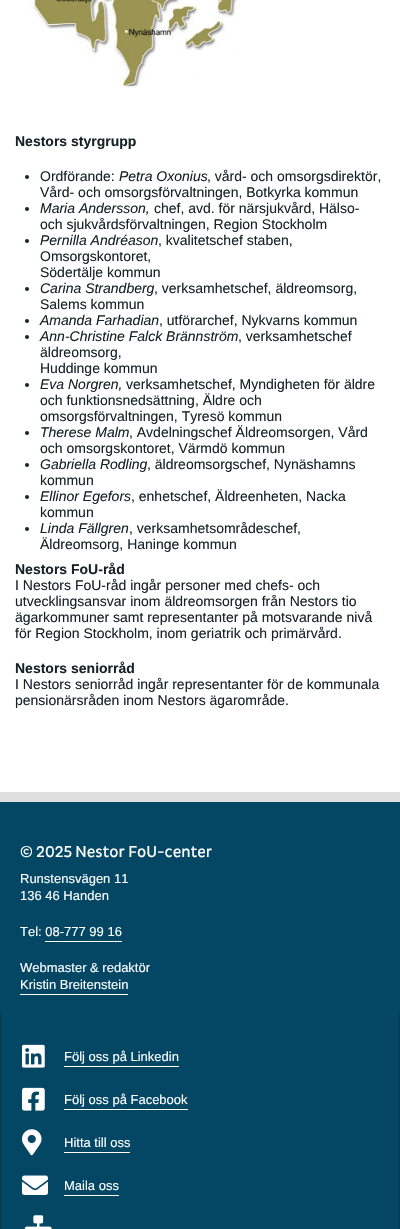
void draw(SkCanvas* canvas) {
    SkPaint paint;
    paint.setAntiAlias(true);
    auto face = [&](const char* family, int weight, float size, bool italic = false) {
        SkFontStyle style(weight, SkFontStyle::kNormal_Width,
            italic ? SkFontStyle::kItalic_Slant : SkFontStyle::kUpright_Slant);
        SkFont result(fontMgr->matchFamilyStyle(family, style), size);
        result.setSubpixel(true);
        return result;
    };
    auto write = [&](const char* s, float x, float y, const SkFont& font, SkColor color) {
        SkPaint ink(SkColor4f::FromColor(color));
        ink.setAntiAlias(true);
        canvas->drawString(s, x, y, font, ink);
    };
    auto block = [&](float x, float y, float w, float h, SkColor color) {
        SkPaint ink(SkColor4f::FromColor(color));
        ink.setAntiAlias(true);
        canvas->drawRect(SkRect::MakeXYWH(x, y, w, h), ink);
    };
    auto paste = [&](const char* path, float x, float y, float w, float h) {
        auto image = SkImages::DeferredFromEncodedData(SkData::MakeFromFileName(path));
        canvas->drawImageRect(image, SkRect::MakeXYWH(x, y, w, h), SkSamplingOptions());
    };
    canvas->clear(SkColorSetRGB(222, 222, 222));
    block(0, 0, 400, 792, SK_ColorWHITE);
    paste("pic1.png", 31, 0, 206, 88);
    auto kFont1 = face("Liberation Sans", 700, 14);
    write("Nestors styrgrupp", 15, 146, kFont1, SkColorSetRGB(21, 35, 41));
    paint.setColor(SkColorSetRGB(21, 35, 41));
    canvas->drawCircle(27, 177, 2, paint);
    auto kFont2 = face("Liberation Sans", 400, 14);
    write("Ordförande:", 40, 181, kFont2, SkColorSetRGB(21, 35, 41));
    auto kFont3 = face("Liberation Sans", 400, 14, true);
    write("Petra Oxonius", 119, 181, kFont3, SkColorSetRGB(21, 35, 41));
    write(", vård- och omsorgsdirektör,", 207, 181, kFont2, SkColorSetRGB(21, 35, 41));
    write("Vård- och omsorgsförvaltningen, Botkyrka kommun", 40, 197, kFont2, SkColorSetRGB(21, 35, 41));
    canvas->drawCircle(27, 209, 2, paint);
    write("Maria Andersson,", 40, 213, kFont3, SkColorSetRGB(21, 35, 41));
    write("chef, avd. för närsjukvård, Hälso-", 154, 213, kFont2, SkColorSetRGB(21, 35, 41));
    write("och sjukvårdsförvaltningen, Region Stockholm", 40, 229, kFont2, SkColorSetRGB(21, 35, 41));
    canvas->drawCircle(27, 241, 2, paint);
    write("Pernilla Andréason", 40, 245, kFont3, SkColorSetRGB(21, 35, 41));
    write(", kvalitetschef staben,", 158, 245, kFont2, SkColorSetRGB(21, 35, 41));
    write("Omsorgskontoret,", 40, 261, kFont2, SkColorSetRGB(21, 35, 41));
    write("Södertälje kommun", 40, 277, kFont2, SkColorSetRGB(21, 35, 41));
    canvas->drawCircle(27, 289, 2, paint);
    write("Carina Strandberg", 40, 293, kFont3, SkColorSetRGB(21, 35, 41));
    write(", verksamhetschef, äldreomsorg,", 154, 293, kFont2, SkColorSetRGB(21, 35, 41));
    write("Salems kommun", 40, 309, kFont2, SkColorSetRGB(21, 35, 41));
    canvas->drawCircle(27, 321, 2, paint);
    write("Amanda Farhadian", 40, 325, kFont3, SkColorSetRGB(21, 35, 41));
    write(", utförarchef, Nykvarns kommun", 159, 325, kFont2, SkColorSetRGB(21, 35, 41));
    canvas->drawCircle(27, 337, 2, paint);
    write("Ann-Christine Falck Brännström", 40, 341, kFont3, SkColorSetRGB(21, 35, 41));
    write(", verksamhetschef", 238, 341, kFont2, SkColorSetRGB(21, 35, 41));
    write("äldreomsorg,", 40, 357, kFont2, SkColorSetRGB(21, 35, 41));
    write("Huddinge kommun", 40, 373, kFont2, SkColorSetRGB(21, 35, 41));
    canvas->drawCircle(27, 385, 2, paint);
    write("Eva Norgren,", 40, 389, kFont3, SkColorSetRGB(21, 35, 41));
    write("verksamhetschef, Myndigheten för äldre", 126, 389, kFont2, SkColorSetRGB(21, 35, 41));
    write("och funktionsnedsättning, Äldre och", 40, 405, kFont2, SkColorSetRGB(21, 35, 41));
    write("omsorgsförvaltningen, Tyresö kommun", 40, 421, kFont2, SkColorSetRGB(21, 35, 41));
    canvas->drawCircle(27, 433, 2, paint);
    write("Therese Malm", 40, 437, kFont3, SkColorSetRGB(21, 35, 41));
    write(", Avdelningschef Äldreomsorgen, Vård", 129, 437, kFont2, SkColorSetRGB(21, 35, 41));
    write("och omsorgskontoret, Värmdö kommun", 40, 453, kFont2, SkColorSetRGB(21, 35, 41));
    canvas->drawCircle(27, 465, 2, paint);
    write("Gabriella Rodling", 40, 469, kFont3, SkColorSetRGB(21, 35, 41));
    write(", äldreomsorgschef, Nynäshamns", 147, 469, kFont2, SkColorSetRGB(21, 35, 41));
    write("kommun", 40, 485, kFont2, SkColorSetRGB(21, 35, 41));
    canvas->drawCircle(27, 497, 2, paint);
    write("Ellinor Egefors", 40, 501, kFont3, SkColorSetRGB(21, 35, 41));
    write(", enhetschef, Äldreenheten, Nacka", 131, 501, kFont2, SkColorSetRGB(21, 35, 41));
    write("kommun", 40, 517, kFont2, SkColorSetRGB(21, 35, 41));
    canvas->drawCircle(27, 529, 2, paint);
    write("Linda Fällgren", 40, 533, kFont3, SkColorSetRGB(21, 35, 41));
    write(", verksamhetsområdeschef,", 129, 533, kFont2, SkColorSetRGB(21, 35, 41));
    write("Äldreomsorg, Haninge kommun", 40, 549, kFont2, SkColorSetRGB(21, 35, 41));
    write("Nestors FoU-råd", 15, 574, kFont1, SkColorSetRGB(21, 35, 41));
    write("I Nestors FoU-råd ingår personer med chefs- och", 15, 590, kFont2, SkColorSetRGB(21, 35, 41));
    write("utvecklingsansvar inom äldreomsorgen från Nestors tio", 15, 606, kFont2, SkColorSetRGB(21, 35, 41));
    write("ägarkommuner samt representanter på motsvarande nivå", 15, 622, kFont2, SkColorSetRGB(21, 35, 41));
    write("för Region Stockholm, inom geriatrik och primärvård.", 15, 638, kFont2, SkColorSetRGB(21, 35, 41));
    write("Nestors seniorråd", 15, 673, kFont1, SkColorSetRGB(21, 35, 41));
    write("I Nestors seniorråd ingår representanter för de kommunala", 15, 689, kFont2, SkColorSetRGB(21, 35, 41));
    write("pensionärsråden inom Nestors ägarområde.", 15, 705, kFont2, SkColorSetRGB(21, 35, 41));
    block(0, 802, 400, 427, SkColorSetRGB(3, 71, 101));
    auto kFont4 = face("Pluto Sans", 400, 16);
    write("© 2025 Nestor FoU-center", 20, 857, kFont4, SK_ColorWHITE);
    auto kFont5 = face("Liberation Sans", 400, 13);
    write("Runstensvägen 11", 20, 883, kFont5, SK_ColorWHITE);
    write("136 46 Handen", 20, 900, kFont5, SK_ColorWHITE);
    write("Tel: 08-777 99 16", 20, 936, kFont5, SK_ColorWHITE);
    block(45, 941, 77, 1, SK_ColorWHITE);
    write("Webmaster & redaktör", 20, 972, kFont5, SK_ColorWHITE);
    write("Kristin Breitenstein", 20, 989, kFont5, SK_ColorWHITE);
    block(20, 994, 108, 1, SK_ColorWHITE);
    block(399, 1012, 1, 217, SkColorSetRGB(2, 56, 80));
    block(0, 1012, 1, 217, SkColorSetRGB(2, 56, 80));
    paste("pic2.png", 22, 1044, 23, 24);
    write("Följ oss på Linkedin", 64, 1061, kFont5, SK_ColorWHITE);
    block(64, 1066, 115, 1, SK_ColorWHITE);
    paste("pic3.png", 22, 1087, 23, 24);
    write("Följ oss på Facebook", 64, 1104, kFont5, SK_ColorWHITE);
    block(64, 1109, 124, 1, SK_ColorWHITE);
    paste("pic4.png", 22, 1129, 20, 27);
    write("Hitta till oss", 64, 1147, kFont5, SK_ColorWHITE);
    block(64, 1152, 66, 1, SK_ColorWHITE);
    paste("pic5.png", 22, 1175, 26, 20);
    write("Maila oss", 64, 1190, kFont5, SK_ColorWHITE);
    block(64, 1195, 55, 1, SK_ColorWHITE);
    paste("pic6.png", 24, 1215, 28, 14);
}
